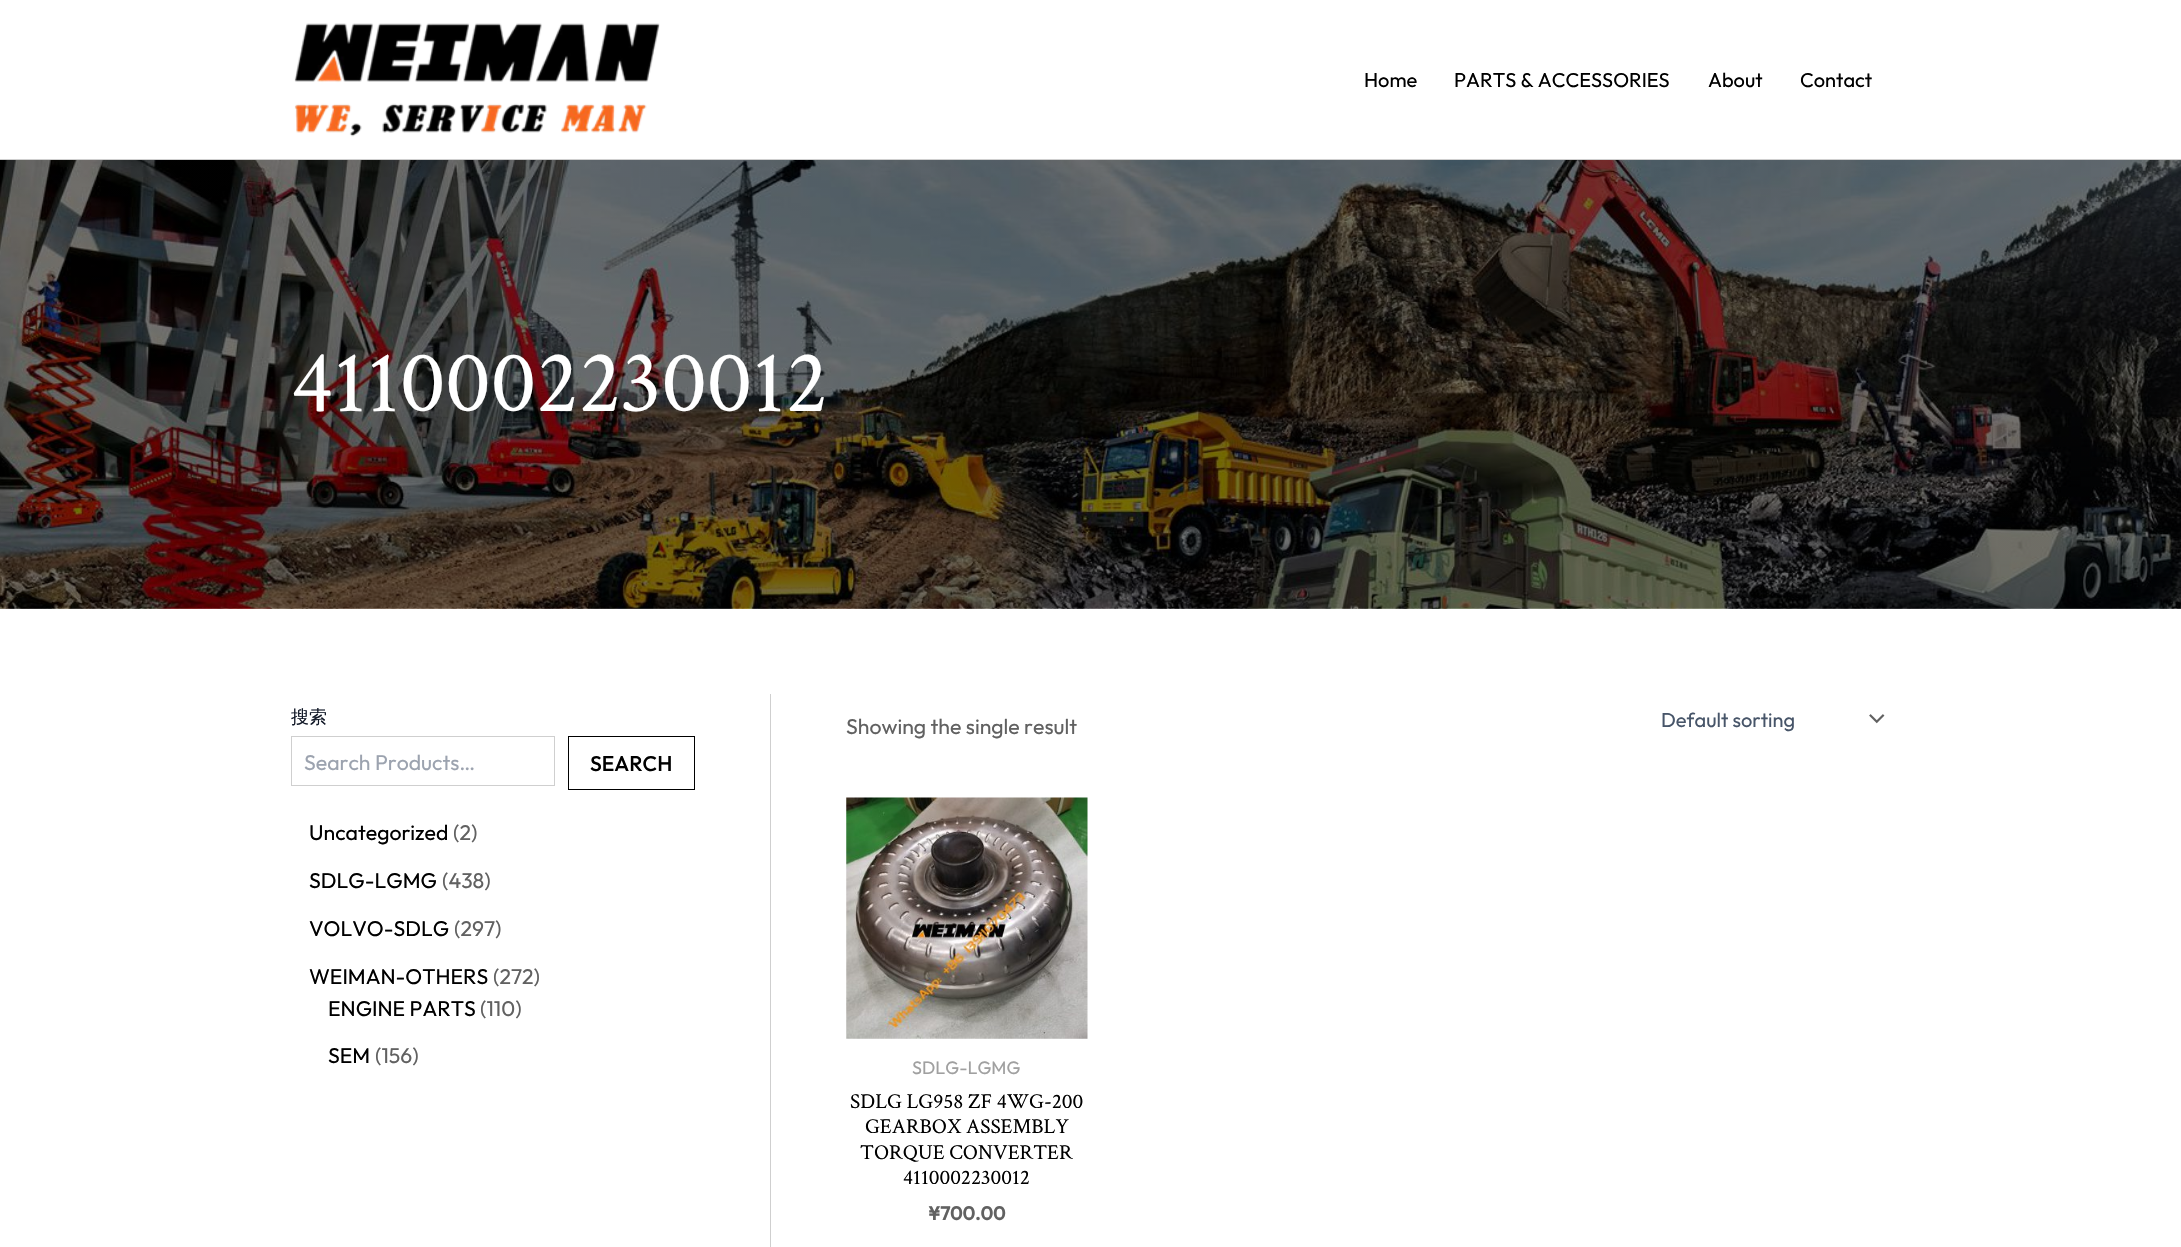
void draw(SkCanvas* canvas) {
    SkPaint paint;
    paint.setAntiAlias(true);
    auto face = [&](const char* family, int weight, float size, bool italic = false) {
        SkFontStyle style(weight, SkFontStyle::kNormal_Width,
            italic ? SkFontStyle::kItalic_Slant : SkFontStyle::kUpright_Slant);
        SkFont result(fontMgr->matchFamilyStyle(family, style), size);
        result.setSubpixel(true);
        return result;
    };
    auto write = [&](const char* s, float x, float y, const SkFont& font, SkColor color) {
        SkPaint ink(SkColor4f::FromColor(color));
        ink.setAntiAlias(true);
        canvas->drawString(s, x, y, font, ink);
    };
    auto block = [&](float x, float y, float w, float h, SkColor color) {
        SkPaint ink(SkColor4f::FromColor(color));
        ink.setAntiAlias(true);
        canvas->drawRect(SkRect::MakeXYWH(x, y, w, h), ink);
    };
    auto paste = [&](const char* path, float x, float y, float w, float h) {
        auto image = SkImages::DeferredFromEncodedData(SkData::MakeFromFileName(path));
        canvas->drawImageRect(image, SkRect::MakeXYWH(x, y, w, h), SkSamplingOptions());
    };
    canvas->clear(SK_ColorWHITE);
    block(0, 159, 2181, 1, SkColorSetRGB(207, 207, 207));
    paste("pic1.png", 294, 23, 366, 114);
    auto kFont1 = face("Outfit", 400, 20);
    write("Home", 1364, 87, kFont1, SK_ColorBLACK);
    write("PARTS & ACCESSORIES", 1454, 87, kFont1, SK_ColorBLACK);
    write("About", 1708, 87, kFont1, SK_ColorBLACK);
    write("Contact", 1800, 87, kFont1, SK_ColorBLACK);
    paste("pic2.png", 0, 160, 2181, 449);
    auto kFont2 = face("Crimson Text", 400, 90);
    write("4110002230012", 291, 411, kFont2, SK_ColorWHITE);
    block(770, 694, 1, 553, SkColorSetRGB(207, 207, 207));
    auto kFont3 = face("WenQuanYi Zen Hei", 500, 18);
    write("搜索", 291, 723, kFont3, SkColorSetRGB(17, 24, 39));
    paint.setStyle(SkPaint::kStroke_Style);
    paint.setStrokeWidth(1);
    paint.setColor(SkColorSetRGB(207, 207, 207));
    canvas->drawRect(SkRect::MakeXYWH(291.5f, 736.5f, 263, 49), paint);
    auto kFont4 = face("Outfit", 400, 21.25f);
    write("Search Products…", 304, 770, kFont4, SkColorSetRGB(156, 163, 175));
    paint.setColor(SK_ColorBLACK);
    canvas->drawRect(SkRect::MakeXYWH(568.5f, 736.5f, 126, 53), paint);
    auto kFont5 = face("Outfit", 500, 21.25f);
    write("SEARCH", 590, 771, kFont5, SK_ColorBLACK);
    write("Uncategorized", 309, 840, kFont4, SK_ColorBLACK);
    write("(2)", 453, 840, kFont4, SkColorSetRGB(97, 97, 97));
    write("SDLG-LGMG", 309, 888, kFont4, SK_ColorBLACK);
    write("(438)", 442, 888, kFont4, SkColorSetRGB(97, 97, 97));
    write("VOLVO-SDLG", 309, 936, kFont4, SK_ColorBLACK);
    write("(297)", 454, 936, kFont4, SkColorSetRGB(97, 97, 97));
    write("WEIMAN-OTHERS", 309, 984, kFont4, SK_ColorBLACK);
    write("(272)", 493, 984, kFont4, SkColorSetRGB(97, 97, 97));
    write("ENGINE PARTS", 328, 1016, kFont4, SK_ColorBLACK);
    write("(110)", 480, 1016, kFont4, SkColorSetRGB(97, 97, 97));
    write("SEM", 328, 1063, kFont4, SK_ColorBLACK);
    write("(156)", 375, 1063, kFont4, SkColorSetRGB(97, 97, 97));
    write("Showing the single result", 846, 734, kFont4, SkColorSetRGB(97, 97, 97));
    paste("pic3.png", 1869, 714, 16, 10);
    write("Default sorting", 1661, 727, kFont1, SkColorSetRGB(71, 85, 105));
    paste("pic4.png", 846, 797, 242, 242);
    auto kFont6 = face("Outfit", 400, 18);
    write("SDLG-LGMG", 912, 1074, kFont6, SkColorSetRGB(160, 160, 160));
    auto kFont7 = face("Crimson Text", 400, 21.25f);
    write("SDLG LG958 ZF 4WG-200", 850, 1108, kFont7, SK_ColorBLACK);
    write("GEARBOX ASSEMBLY", 865, 1133, kFont7, SK_ColorBLACK);
    write("TORQUE CONVERTER", 860, 1159, kFont7, SK_ColorBLACK);
    write("4110002230012", 903, 1184, kFont7, SK_ColorBLACK);
    auto kFont8 = face("Outfit", 700, 19);
    write("¥700.00", 928, 1220, kFont8, SkColorSetRGB(97, 97, 97));
}
